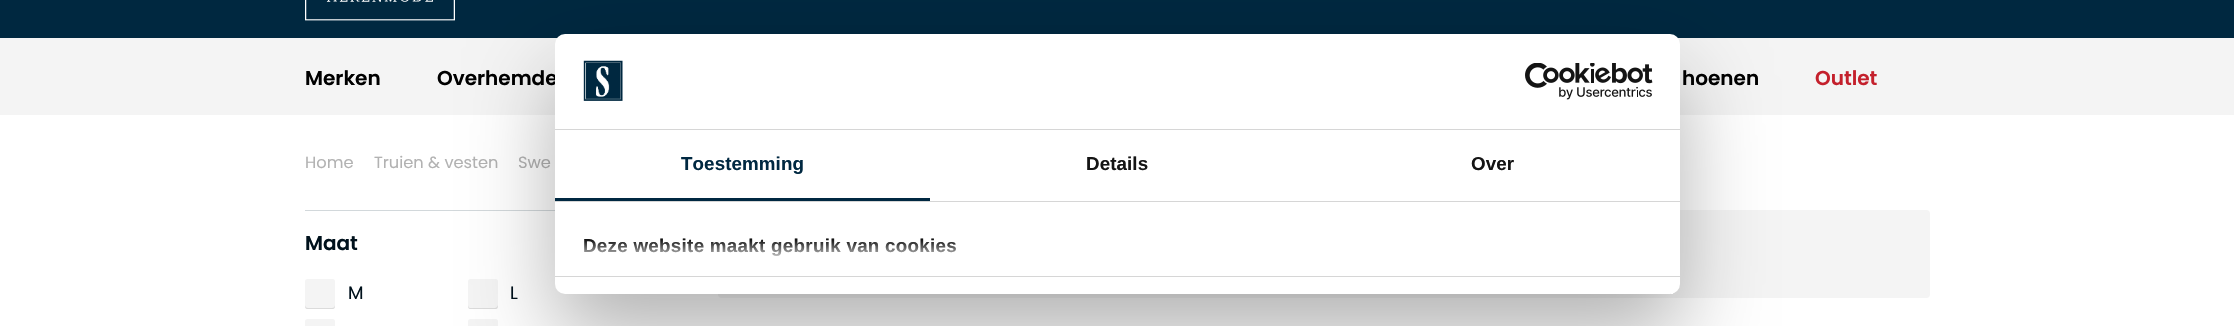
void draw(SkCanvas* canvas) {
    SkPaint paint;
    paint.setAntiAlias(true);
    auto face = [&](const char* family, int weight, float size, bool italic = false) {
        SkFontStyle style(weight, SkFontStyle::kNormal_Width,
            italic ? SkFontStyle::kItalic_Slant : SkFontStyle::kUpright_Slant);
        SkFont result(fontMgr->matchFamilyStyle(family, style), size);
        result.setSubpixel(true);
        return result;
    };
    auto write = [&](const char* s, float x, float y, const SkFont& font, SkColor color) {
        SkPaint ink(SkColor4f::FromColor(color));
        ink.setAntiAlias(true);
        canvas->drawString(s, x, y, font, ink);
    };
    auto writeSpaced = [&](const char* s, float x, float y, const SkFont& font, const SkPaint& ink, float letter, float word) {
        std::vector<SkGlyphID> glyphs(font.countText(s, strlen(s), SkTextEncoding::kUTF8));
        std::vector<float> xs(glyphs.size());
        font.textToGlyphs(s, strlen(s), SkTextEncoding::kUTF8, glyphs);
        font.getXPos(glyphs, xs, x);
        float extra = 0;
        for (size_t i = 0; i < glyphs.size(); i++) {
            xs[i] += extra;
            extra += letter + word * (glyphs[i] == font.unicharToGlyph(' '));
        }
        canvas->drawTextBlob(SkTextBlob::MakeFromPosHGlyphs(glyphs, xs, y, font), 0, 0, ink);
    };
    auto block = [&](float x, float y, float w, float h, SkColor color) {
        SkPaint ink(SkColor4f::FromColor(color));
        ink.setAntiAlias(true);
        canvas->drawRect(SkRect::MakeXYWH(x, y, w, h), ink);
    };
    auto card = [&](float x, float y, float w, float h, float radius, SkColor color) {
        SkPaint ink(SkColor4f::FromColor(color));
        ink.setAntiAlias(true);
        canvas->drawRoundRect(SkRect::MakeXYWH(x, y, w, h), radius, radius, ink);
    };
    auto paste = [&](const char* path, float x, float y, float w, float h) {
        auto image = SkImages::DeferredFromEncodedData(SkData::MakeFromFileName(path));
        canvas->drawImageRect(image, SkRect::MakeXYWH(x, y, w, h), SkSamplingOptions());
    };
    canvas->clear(SK_ColorWHITE);
    block(0, 0, 2234, 38, SkColorSetRGB(0, 40, 64));
    paste("pic1.png", 305, 0, 150, 21);
    block(0, 38, 2234, 77, SkColorSetRGB(244, 244, 244));
    auto kFont1 = face("Poppins", 600, 20);
    write("Merken", 305, 85, kFont1, SK_ColorBLACK);
    write("Overhemde", 437, 85, kFont1, SK_ColorBLACK);
    write("hoenen", 1682, 85, kFont1, SK_ColorBLACK);
    write("Outlet", 1815, 85, kFont1, SkColorSetRGB(196, 32, 44));
    auto kFont2 = face("Poppins", 400, 16.25f);
    write("Home", 305, 168, kFont2, SkColorSetRGB(178, 178, 178));
    write("Truien & vesten", 374, 168, kFont2, SkColorSetRGB(178, 178, 178));
    write("Swe", 518, 168, kFont2, SkColorSetRGB(178, 178, 178));
    block(305, 210, 250, 1, SkColorSetRGB(210, 216, 219));
    write("Maat", 305, 250, kFont1, SkColorSetRGB(0, 17, 28));
    card(305, 279, 30, 30, 2.5f, SkColorSetRGB(244, 244, 244));
    paint.setColor(SkColorSetARGB(26, 0, 0, 0));
    canvas->drawPath(SkPathBuilder().moveTo(305, 305).cubicTo(305, 310, 307, 309, 311.5f, 309).lineTo(328.5f, 309).cubicTo(333, 309, 335, 310, 335, 305).cubicTo(335, 306, 334, 308, 332, 308).lineTo(308, 308).cubicTo(306, 308, 305, 306, 305, 305).close().detach(), paint);
    auto kFont3 = face("Poppins", 400, 18);
    write("M", 348, 299, kFont3, SkColorSetRGB(0, 17, 28));
    card(468, 279, 30, 30, 2.5f, SkColorSetRGB(244, 244, 244));
    canvas->drawPath(SkPathBuilder().moveTo(468, 305).cubicTo(468, 310, 470, 309, 474.5f, 309).lineTo(491.5f, 309).cubicTo(496, 309, 498, 310, 498, 305).cubicTo(498, 306, 496, 308, 495, 308).lineTo(470, 308).cubicTo(469, 308, 468, 306, 468, 305).close().detach(), paint);
    write("L", 510, 299, kFont3, SkColorSetRGB(0, 17, 28));
    card(305, 319, 30, 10, 2.5f, SkColorSetRGB(244, 244, 244));
    card(468, 319, 30, 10, 2.5f, SkColorSetRGB(244, 244, 244));
    card(718, 210, 1212, 88, 4, SkColorSetRGB(244, 244, 244));
    paint.setColor(SkColorSetARGB(77, 0, 0, 0));
    paint.setMaskFilter(SkMaskFilter::MakeBlur(kNormal_SkBlurStyle, 42.5f));
    canvas->drawRoundRect(SkRect::MakeXYWH(555, 74, 1125, 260), 10, 10, paint);
    paint.setMaskFilter(nullptr);
    card(555, 34, 1125, 260, 10, SK_ColorWHITE);
    block(555, 129, 1125, 1, SkColorSetRGB(214, 214, 214));
    paste("pic2.png", 583, 60, 40, 41);
    paste("pic3.png", 1525, 63, 128, 37);
    block(555, 201, 1125, 1, SkColorSetRGB(214, 214, 214));
    block(555, 198, 375, 3, SkColorSetRGB(0, 40, 65));
    auto kFont4 = face("Liberation Sans", 700, 18.75f);
    paint.setColor(SkColorSetRGB(0, 40, 65));
    writeSpaced("Toestemming", 681, 170, kFont4, paint, 0.1f, 0);
    paint.setColor(SkColorSetRGB(20, 20, 20));
    writeSpaced("Details", 1086, 170, kFont4, paint, 0.1f, 0);
    writeSpaced("Over", 1471, 170, kFont4, paint, 0.1f, 0);
    block(555, 276, 1125, 1, SkColorSetRGB(214, 214, 214));
    writeSpaced("Deze website maakt gebruik van cookies", 583, 252, kFont4, paint, 0.3f, 0);
    {
        const SkColor colors[] = {SK_ColorWHITE, SkColorSetARGB(204, 255, 255, 255), SkColorSetARGB(0, 255, 255, 255)};
        const float stops[] = {0, 0.5f, 1};
        const SkPoint ends[] = {{1105, 276}, {1105, 240}};
        paint.setShader(SkGradientShader::MakeLinear(ends, colors, stops, 3, SkTileMode::kClamp));
        paint.setAlpha(255);
    }
    canvas->drawRect(SkRect::MakeXYWH(584, 240, 373, 16), paint);
    block(1671, 293, 2, 1, SK_ColorWHITE);
}
